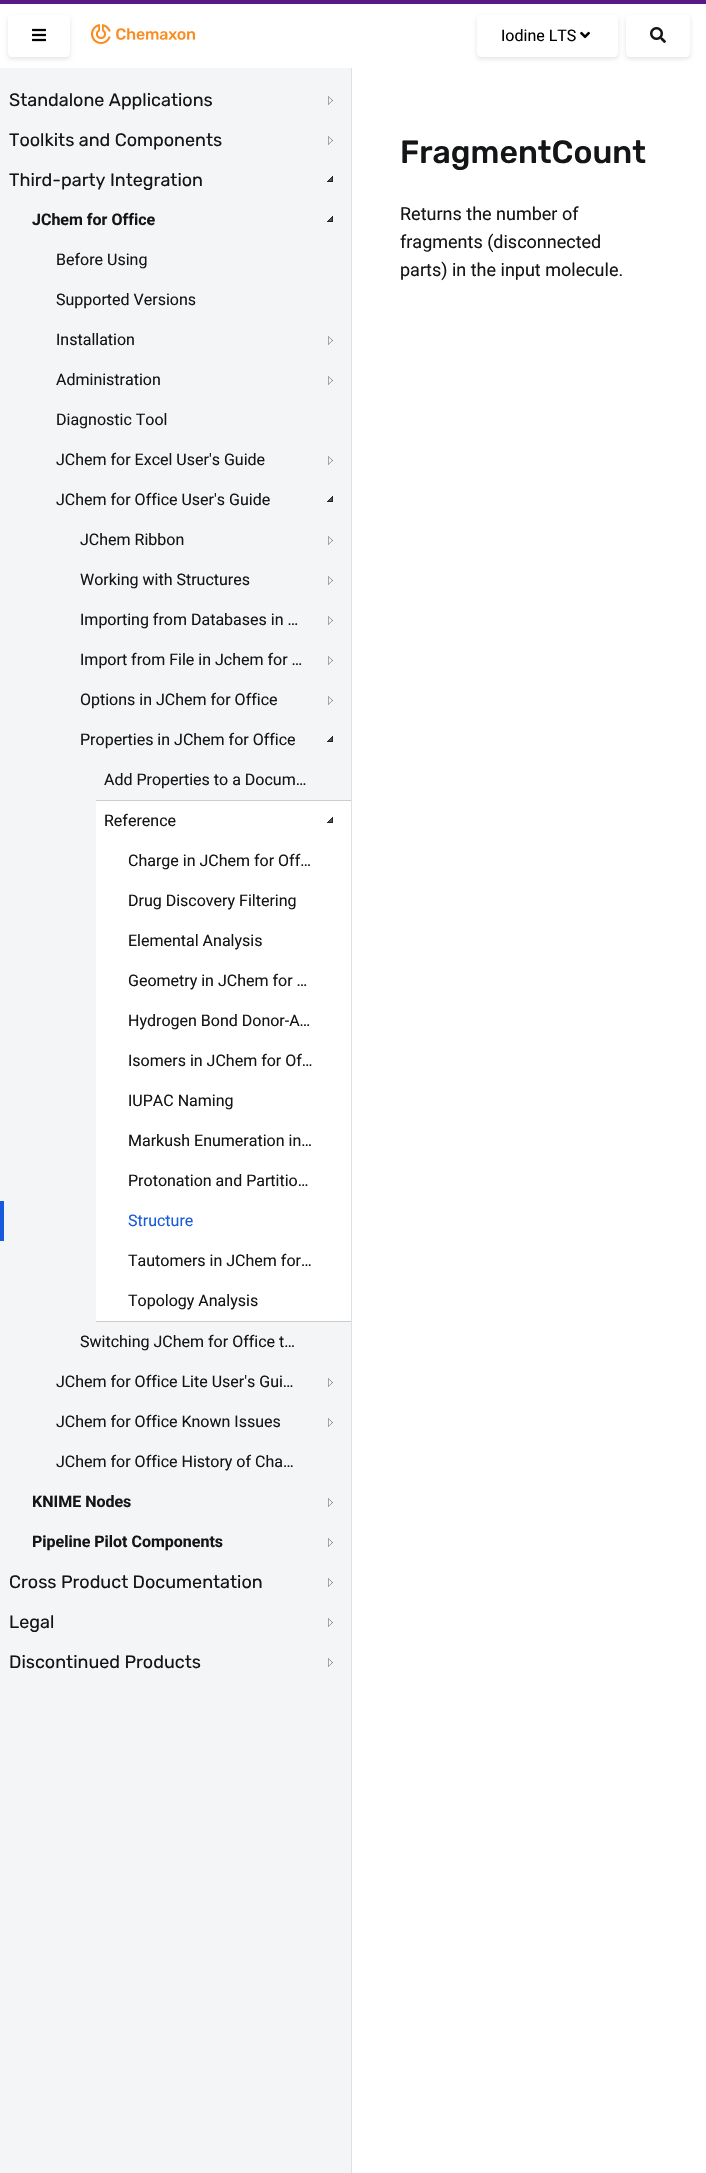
void draw(SkCanvas* canvas) {
    SkPaint paint;
    paint.setAntiAlias(true);
    auto face = [&](const char* family, int weight, float size, bool italic = false) {
        SkFontStyle style(weight, SkFontStyle::kNormal_Width,
            italic ? SkFontStyle::kItalic_Slant : SkFontStyle::kUpright_Slant);
        SkFont result(fontMgr->matchFamilyStyle(family, style), size);
        result.setSubpixel(true);
        return result;
    };
    auto write = [&](const char* s, float x, float y, const SkFont& font, SkColor color) {
        SkPaint ink(SkColor4f::FromColor(color));
        ink.setAntiAlias(true);
        canvas->drawString(s, x, y, font, ink);
    };
    auto block = [&](float x, float y, float w, float h, SkColor color) {
        SkPaint ink(SkColor4f::FromColor(color));
        ink.setAntiAlias(true);
        canvas->drawRect(SkRect::MakeXYWH(x, y, w, h), ink);
    };
    auto paste = [&](const char* path, float x, float y, float w, float h) {
        auto image = SkImages::DeferredFromEncodedData(SkData::MakeFromFileName(path));
        canvas->drawImageRect(image, SkRect::MakeXYWH(x, y, w, h), SkSamplingOptions());
    };
    canvas->clear(SK_ColorWHITE);
    block(0, 0, 706, 4, SkColorSetRGB(90, 23, 136));
    block(351, 64, 1, 2109, SkColorSetRGB(218, 225, 231));
    block(351, 64, 1, 4, SK_ColorWHITE);
    canvas->save();
    canvas->clipPath(SkPathBuilder(SkPathFillType::kEvenOdd).moveTo(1, 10).lineTo(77, 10).lineTo(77, 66).lineTo(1, 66).close().moveTo(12, 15).lineTo(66, 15).cubicTo(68, 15, 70, 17, 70, 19).lineTo(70, 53).cubicTo(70, 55, 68, 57, 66, 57).lineTo(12, 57).cubicTo(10, 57, 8, 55, 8, 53).lineTo(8, 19).cubicTo(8, 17, 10, 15, 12, 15).close().detach(), true);
    paint.setColor(SkColorSetARGB(26, 0, 0, 0));
    paint.setMaskFilter(SkMaskFilter::MakeBlur(kNormal_SkBlurStyle, 2));
    canvas->drawRoundRect(SkRect::MakeXYWH(8, 17, 62, 42), 4, 4, paint);
    paint.setMaskFilter(nullptr);
    canvas->restore();
    paste("pic1.png", 32, 28, 14, 14);
    paste("pic2.png", 90, 24, 106, 20);
    canvas->save();
    canvas->clipPath(SkPathBuilder(SkPathFillType::kEvenOdd).moveTo(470, 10).lineTo(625, 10).lineTo(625, 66).lineTo(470, 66).close().moveTo(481, 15).lineTo(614, 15).cubicTo(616, 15, 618, 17, 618, 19).lineTo(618, 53).cubicTo(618, 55, 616, 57, 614, 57).lineTo(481, 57).cubicTo(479, 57, 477, 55, 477, 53).lineTo(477, 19).cubicTo(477, 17, 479, 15, 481, 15).close().detach(), true);
    paint.setMaskFilter(SkMaskFilter::MakeBlur(kNormal_SkBlurStyle, 2));
    canvas->drawRoundRect(SkRect::MakeXYWH(477, 17, 141, 42), 4, 4, paint);
    paint.setMaskFilter(nullptr);
    canvas->restore();
    auto kFont1 = face("Roboto", 400, 16);
    write("Iodine LTS", 501, 41, kFont1, SK_ColorBLACK);
    paste("pic3.png", 580, 31, 10, 8);
    canvas->save();
    canvas->clipPath(SkPathBuilder(SkPathFillType::kEvenOdd).moveTo(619, 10).lineTo(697, 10).lineTo(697, 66).lineTo(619, 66).close().moveTo(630, 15).lineTo(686, 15).cubicTo(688, 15, 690, 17, 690, 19).lineTo(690, 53).cubicTo(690, 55, 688, 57, 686, 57).lineTo(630, 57).cubicTo(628, 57, 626, 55, 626, 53).lineTo(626, 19).cubicTo(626, 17, 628, 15, 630, 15).close().detach(), true);
    paint.setMaskFilter(SkMaskFilter::MakeBlur(kNormal_SkBlurStyle, 2));
    canvas->drawRoundRect(SkRect::MakeXYWH(626, 17, 64, 42), 4, 4, paint);
    paint.setMaskFilter(nullptr);
    canvas->restore();
    paste("pic4.png", 650, 27, 16, 16);
    block(0, 68, 351, 2105, SkColorSetRGB(244, 245, 247));
    auto kFont2 = face("Rubik", 400, 18);
    write("Standalone Applications", 9, 106, kFont2, SkColorSetRGB(19, 21, 23));
    paste("pic5.png", 328, 96, 5, 9);
    write("Toolkits and Components", 9, 146, kFont2, SkColorSetRGB(19, 21, 23));
    paste("pic5.png", 328, 136, 5, 9);
    write("Third-party Integration", 9, 186, kFont2, SkColorSetRGB(19, 21, 23));
    paste("pic6.png", 327, 176, 6, 6);
    auto kFont3 = face("Roboto", 700, 16);
    write("JChem for Office", 32, 225, kFont3, SkColorSetRGB(19, 21, 23));
    paste("pic6.png", 327, 216, 6, 6);
    write("Before Using", 56, 265, kFont1, SkColorSetRGB(19, 21, 23));
    write("Supported Versions", 56, 305, kFont1, SkColorSetRGB(19, 21, 23));
    write("Installation", 56, 345, kFont1, SkColorSetRGB(19, 21, 23));
    paste("pic5.png", 328, 336, 5, 9);
    write("Administration", 56, 385, kFont1, SkColorSetRGB(19, 21, 23));
    paste("pic5.png", 328, 376, 5, 9);
    write("Diagnostic Tool", 56, 425, kFont1, SkColorSetRGB(19, 21, 23));
    write("JChem for Excel User's Guide", 56, 465, kFont1, SkColorSetRGB(19, 21, 23));
    paste("pic5.png", 328, 456, 5, 9);
    write("JChem for Office User's Guide", 56, 505, kFont1, SkColorSetRGB(19, 21, 23));
    paste("pic6.png", 327, 496, 6, 6);
    write("JChem Ribbon", 80, 545, kFont1, SkColorSetRGB(19, 21, 23));
    paste("pic5.png", 328, 536, 5, 9);
    write("Working with Structures", 80, 585, kFont1, SkColorSetRGB(19, 21, 23));
    paste("pic5.png", 328, 576, 5, 9);
    write("Importing from Databases in …", 80, 625, kFont1, SkColorSetRGB(19, 21, 23));
    paste("pic5.png", 328, 616, 5, 9);
    write("Import from File in Jchem for …", 80, 665, kFont1, SkColorSetRGB(19, 21, 23));
    paste("pic5.png", 328, 656, 5, 9);
    write("Options in JChem for Office", 80, 705, kFont1, SkColorSetRGB(19, 21, 23));
    paste("pic5.png", 328, 696, 5, 9);
    write("Properties in JChem for Office", 80, 745, kFont1, SkColorSetRGB(19, 21, 23));
    paste("pic6.png", 327, 736, 6, 6);
    write("Add Properties to a Docum…", 104, 785, kFont1, SkColorSetRGB(19, 21, 23));
    block(96, 801, 255, 520, SK_ColorWHITE);
    block(96, 800, 255, 1, SkColorSetRGB(204, 204, 204));
    block(96, 1321, 255, 1, SkColorSetRGB(204, 204, 204));
    write("Reference", 104, 826, kFont1, SkColorSetRGB(19, 21, 23));
    paste("pic7.png", 327, 817, 6, 6);
    write("Charge in JChem for Off…", 128, 866, kFont1, SkColorSetRGB(19, 21, 23));
    write("Drug Discovery Filtering", 128, 906, kFont1, SkColorSetRGB(19, 21, 23));
    write("Elemental Analysis", 128, 946, kFont1, SkColorSetRGB(19, 21, 23));
    write("Geometry in JChem for …", 128, 986, kFont1, SkColorSetRGB(19, 21, 23));
    write("Hydrogen Bond Donor-A…", 128, 1026, kFont1, SkColorSetRGB(19, 21, 23));
    write("Isomers in JChem for Of…", 128, 1066, kFont1, SkColorSetRGB(19, 21, 23));
    write("IUPAC Naming", 128, 1106, kFont1, SkColorSetRGB(19, 21, 23));
    write("Markush Enumeration in…", 128, 1146, kFont1, SkColorSetRGB(19, 21, 23));
    write("Protonation and Partitio…", 128, 1186, kFont1, SkColorSetRGB(19, 21, 23));
    block(0, 1201, 4, 40, SkColorSetRGB(24, 90, 221));
    write("Structure", 128, 1226, kFont1, SkColorSetRGB(24, 90, 221));
    write("Tautomers in JChem for…", 128, 1266, kFont1, SkColorSetRGB(19, 21, 23));
    write("Topology Analysis", 128, 1306, kFont1, SkColorSetRGB(19, 21, 23));
    write("Switching JChem for Office t…", 80, 1347, kFont1, SkColorSetRGB(19, 21, 23));
    write("JChem for Office Lite User's Gui…", 56, 1387, kFont1, SkColorSetRGB(19, 21, 23));
    paste("pic5.png", 328, 1378, 5, 9);
    write("JChem for Office Known Issues", 56, 1427, kFont1, SkColorSetRGB(19, 21, 23));
    paste("pic5.png", 328, 1418, 5, 9);
    write("JChem for Office History of Cha…", 56, 1467, kFont1, SkColorSetRGB(19, 21, 23));
    write("KNIME Nodes", 32, 1507, kFont3, SkColorSetRGB(19, 21, 23));
    paste("pic5.png", 328, 1498, 5, 9);
    write("Pipeline Pilot Components", 32, 1547, kFont3, SkColorSetRGB(19, 21, 23));
    paste("pic5.png", 328, 1538, 5, 9);
    write("Cross Product Documentation", 9, 1588, kFont2, SkColorSetRGB(19, 21, 23));
    paste("pic5.png", 328, 1578, 5, 9);
    write("Legal", 9, 1628, kFont2, SkColorSetRGB(19, 21, 23));
    paste("pic5.png", 328, 1618, 5, 9);
    write("Discontinued Products", 9, 1668, kFont2, SkColorSetRGB(19, 21, 23));
    paste("pic5.png", 328, 1658, 5, 9);
    auto kFont4 = face("Rubik", 500, 32);
    write("FragmentCount", 400, 163, kFont4, SkColorSetRGB(19, 21, 23));
    auto kFont5 = face("Roboto", 400, 18);
    write("Returns the number of", 400, 220, kFont5, SkColorSetRGB(19, 21, 23));
    write("fragments (disconnected", 400, 248, kFont5, SkColorSetRGB(19, 21, 23));
    write("parts) in the input molecule.", 400, 276, kFont5, SkColorSetRGB(19, 21, 23));
}
